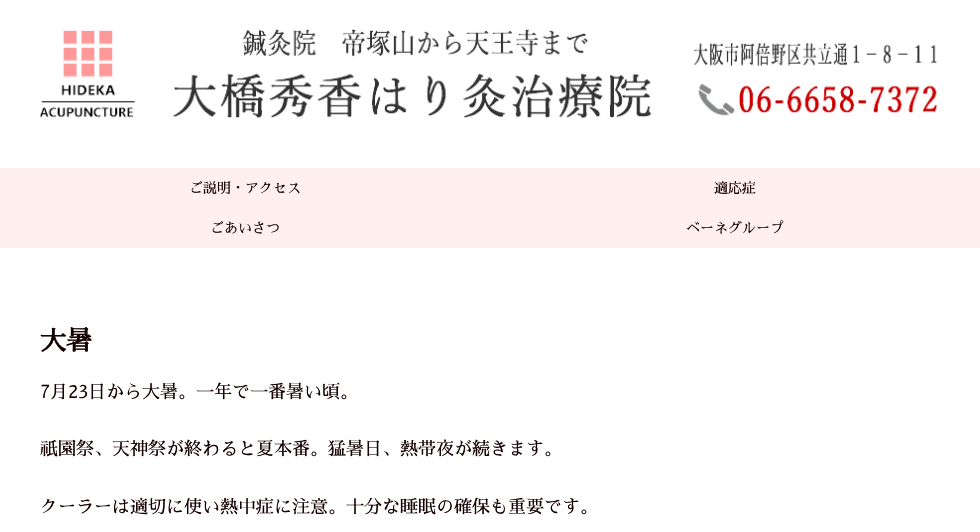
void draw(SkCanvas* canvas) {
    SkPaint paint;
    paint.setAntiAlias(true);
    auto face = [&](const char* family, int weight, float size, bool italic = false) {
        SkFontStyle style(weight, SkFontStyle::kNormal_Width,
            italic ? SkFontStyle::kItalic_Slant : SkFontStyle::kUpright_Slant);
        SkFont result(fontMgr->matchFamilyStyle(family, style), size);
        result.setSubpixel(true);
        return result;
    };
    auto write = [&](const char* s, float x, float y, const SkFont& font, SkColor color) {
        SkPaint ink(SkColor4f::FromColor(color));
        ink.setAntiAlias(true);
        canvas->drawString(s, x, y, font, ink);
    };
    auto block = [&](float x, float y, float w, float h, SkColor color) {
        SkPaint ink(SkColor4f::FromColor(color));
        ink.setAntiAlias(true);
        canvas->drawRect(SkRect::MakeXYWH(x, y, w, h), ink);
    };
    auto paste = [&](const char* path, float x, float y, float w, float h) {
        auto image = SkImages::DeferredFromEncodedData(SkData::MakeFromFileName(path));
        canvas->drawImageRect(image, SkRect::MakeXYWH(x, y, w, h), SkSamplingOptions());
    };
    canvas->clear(SK_ColorWHITE);
    paste("pic1.png", 39, 29, 899, 90);
    block(0, 168, 980, 80, SkColorSetRGB(255, 239, 239));
    auto kFont1 = face("Sawarabi Mincho", 400, 14);
    write("ご説明・アクセス", 189, 193, kFont1, SkColorSetRGB(20, 0, 0));
    write("適応症", 714, 193, kFont1, SkColorSetRGB(20, 0, 0));
    write("ごあいさつ", 210, 233, kFont1, SkColorSetRGB(20, 0, 0));
    write("ベーネグループ", 686, 233, kFont1, SkColorSetRGB(20, 0, 0));
    auto kFont2 = face("Sawarabi Mincho", 700, 26);
    write("大暑", 40, 350, kFont2, SkColorSetRGB(20, 0, 0));
    auto kFont3 = face("Sawarabi Mincho", 400, 18);
    write("7月23日から大暑。一年で一番暑い頃。", 40, 398, kFont3, SkColorSetRGB(20, 0, 0));
    write("祇園祭、天神祭が終わると夏本番。猛暑日、熱帯夜が続きます。", 40, 455, kFont3, SkColorSetRGB(20, 0, 0));
    write("クーラーは適切に使い熱中症に注意。十分な睡眠の確保も重要です。", 40, 513, kFont3, SkColorSetRGB(20, 0, 0));
}
